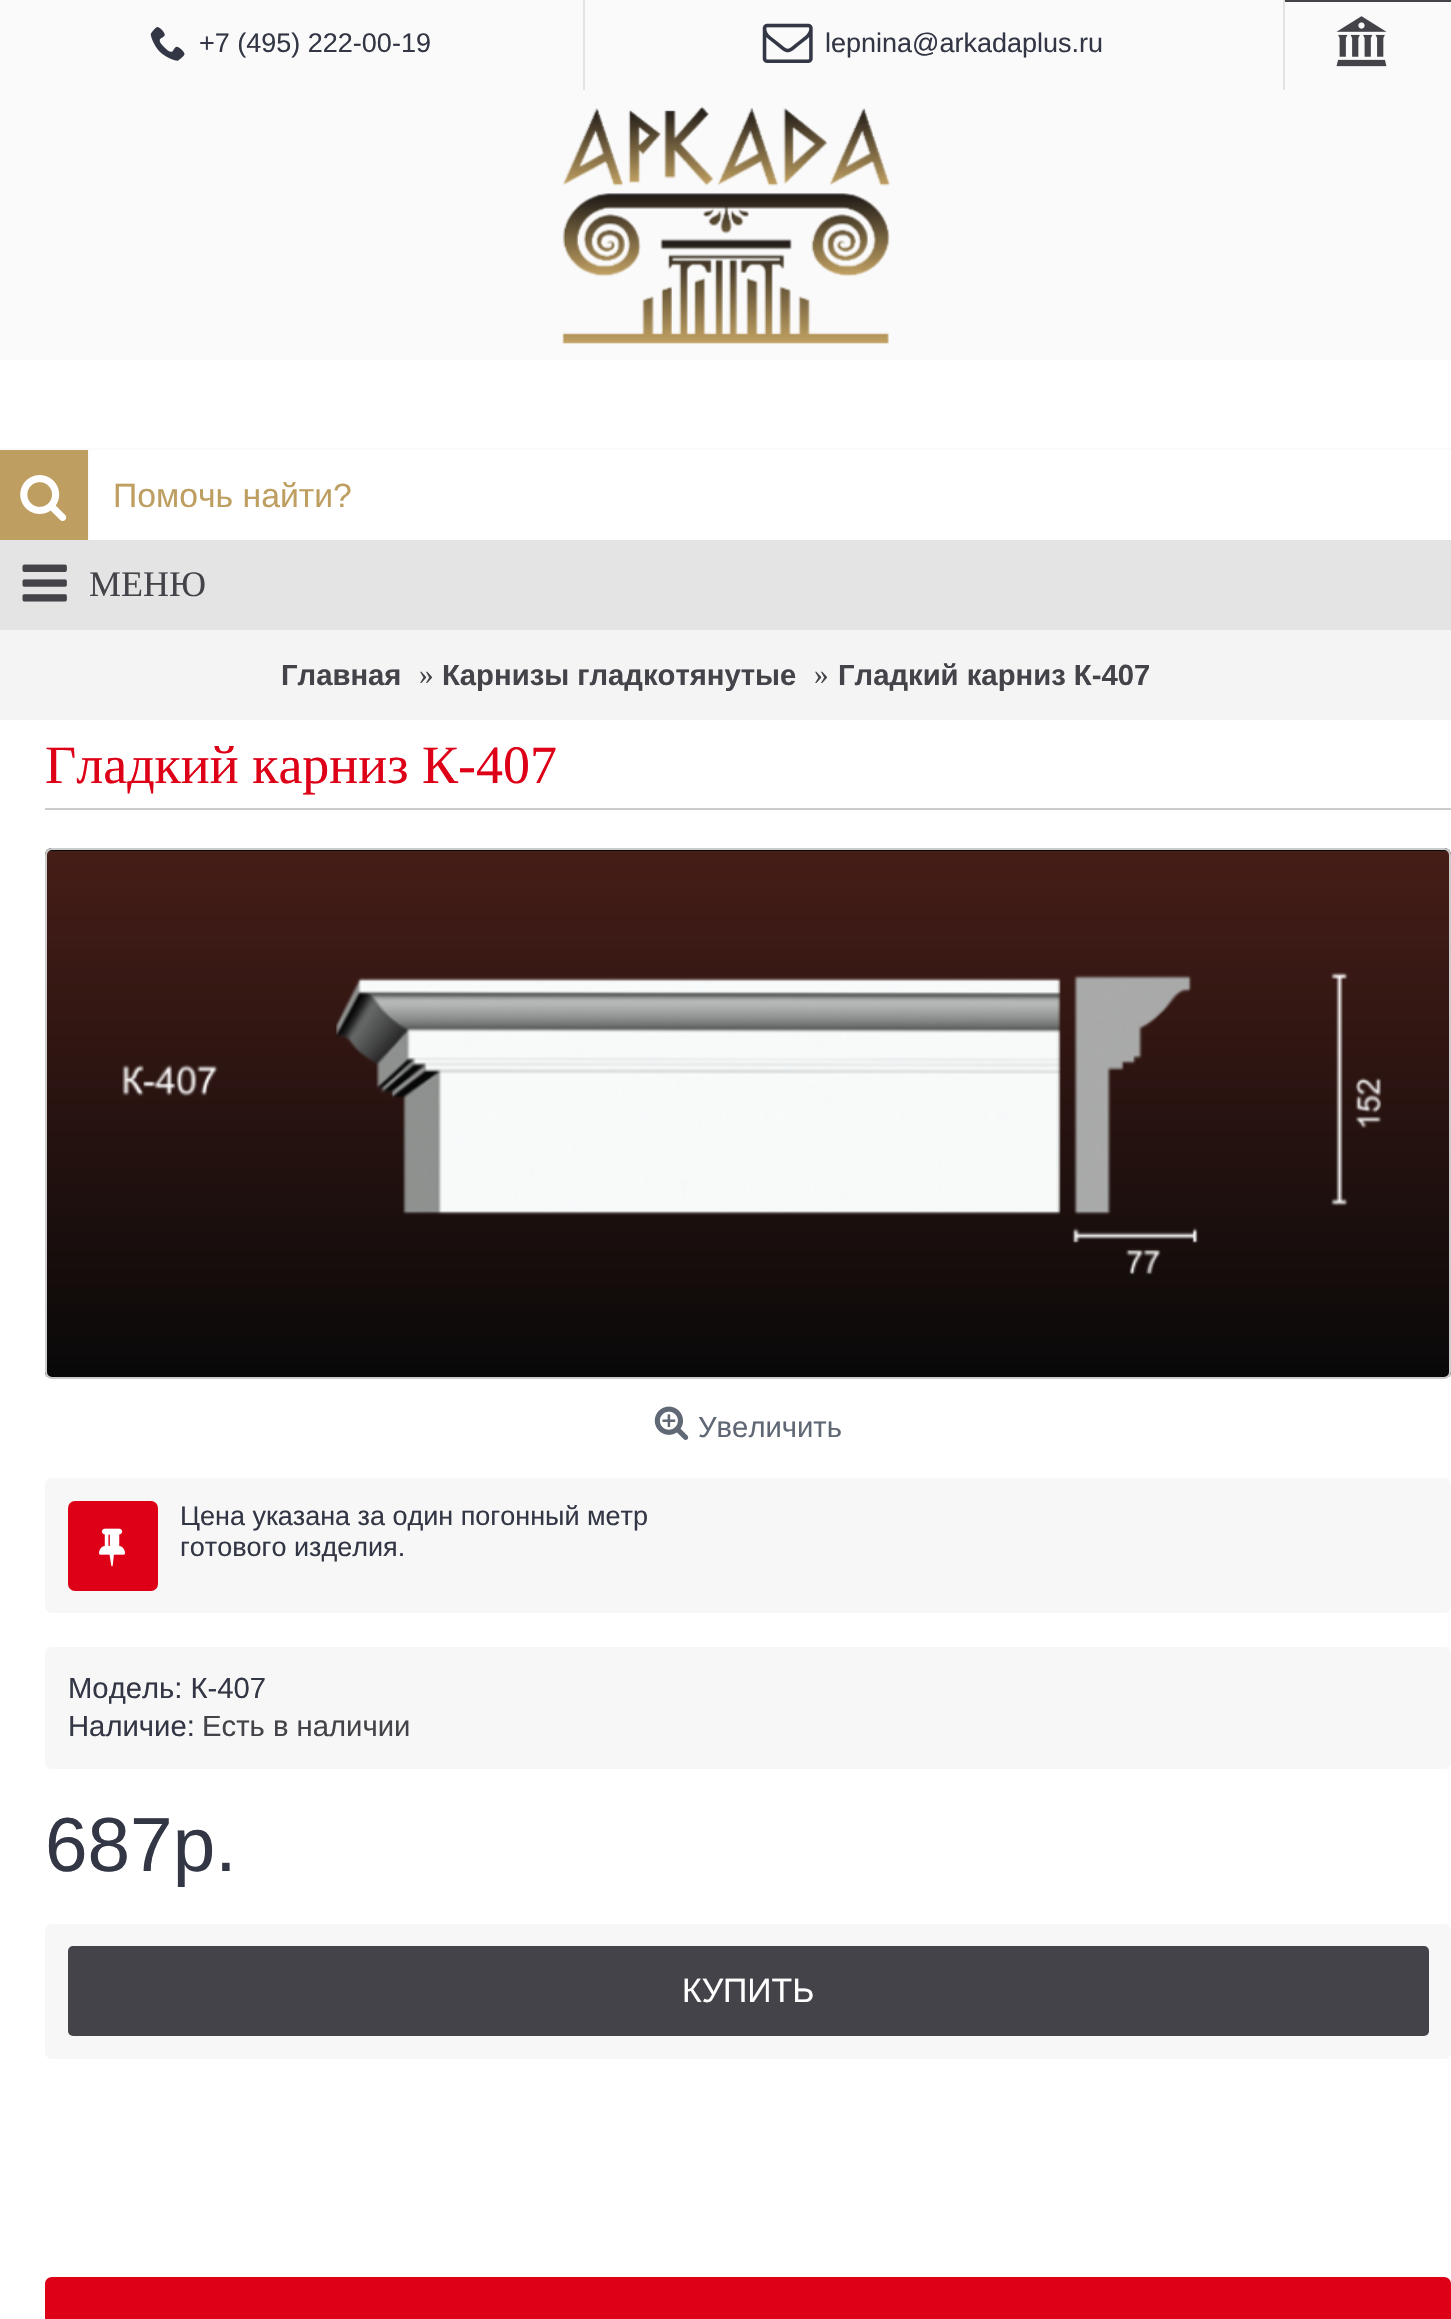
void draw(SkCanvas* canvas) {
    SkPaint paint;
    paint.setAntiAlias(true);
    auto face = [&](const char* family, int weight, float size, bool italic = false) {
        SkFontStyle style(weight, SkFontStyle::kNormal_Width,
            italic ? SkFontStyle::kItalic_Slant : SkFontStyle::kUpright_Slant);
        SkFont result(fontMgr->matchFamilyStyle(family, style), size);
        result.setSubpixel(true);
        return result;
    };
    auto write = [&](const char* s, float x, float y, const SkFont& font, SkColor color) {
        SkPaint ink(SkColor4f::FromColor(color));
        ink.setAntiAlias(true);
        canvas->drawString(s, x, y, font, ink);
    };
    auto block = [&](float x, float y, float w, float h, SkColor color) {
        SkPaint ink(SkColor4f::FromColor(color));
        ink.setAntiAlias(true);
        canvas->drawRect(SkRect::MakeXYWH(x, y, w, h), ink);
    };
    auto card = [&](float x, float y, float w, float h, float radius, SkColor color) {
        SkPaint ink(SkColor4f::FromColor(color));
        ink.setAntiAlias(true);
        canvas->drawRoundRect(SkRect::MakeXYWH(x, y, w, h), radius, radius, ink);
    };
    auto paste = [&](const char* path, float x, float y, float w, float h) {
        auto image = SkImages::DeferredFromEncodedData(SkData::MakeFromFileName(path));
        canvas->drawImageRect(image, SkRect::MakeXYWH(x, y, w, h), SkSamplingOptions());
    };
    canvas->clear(SK_ColorWHITE);
    block(0, 0, 1451, 360, SkColorSetRGB(250, 250, 250));
    block(583, 0, 2, 90, SkColorSetRGB(228, 228, 228));
    paste("pic1.png", 150, 27, 35, 34);
    auto kFont1 = face("Liberation Sans", 400, 27);
    write("+7 (495) 222-00-19", 199, 52, kFont1, SkColorSetRGB(51, 55, 69));
    block(1283, 0, 2, 90, SkColorSetRGB(228, 228, 228));
    paste("pic2.png", 762, 23, 51, 40);
    write("lepnina@arkadaplus.ru", 825, 52, kFont1, SkColorSetRGB(51, 55, 69));
    block(1285, 0, 166, 2, SkColorSetRGB(68, 67, 73));
    paste("pic3.png", 1336, 16, 51, 51);
    paste("pic4.png", 562, 106, 328, 238);
    block(0, 448, 1451, 2, SkColorSetRGB(250, 250, 250));
    block(0, 450, 88, 90, SkColorSetRGB(190, 159, 97));
    block(88, 450, 2, 90, SkColorSetRGB(250, 250, 250));
    paste("pic5.png", 20, 475, 47, 46);
    auto kFont2 = face("Liberation Sans", 400, 33.75f);
    write("Помочь найти?", 113, 507, kFont2, SkColorSetRGB(190, 159, 97));
    block(0, 540, 1451, 90, SkColorSetRGB(228, 228, 228));
    paste("pic6.png", 22, 564, 45, 38);
    auto kFont3 = face("Liberation Serif", 400, 36);
    write("МЕНЮ", 89, 596, kFont3, SkColorSetRGB(68, 67, 73));
    block(0, 630, 1451, 90, SkColorSetRGB(244, 244, 244));
    auto kFont4 = face("Liberation Sans", 700, 29.25f);
    write("Главная", 281, 685, kFont4, SkColorSetRGB(68, 67, 73));
    auto kFont5 = face("Liberation Serif", 400, 29.25f);
    write("»", 419, 684, kFont5, SkColorSetRGB(68, 67, 73));
    write("Карнизы гладкотянутые", 442, 685, kFont4, SkColorSetRGB(68, 67, 73));
    write("»", 814, 684, kFont5, SkColorSetRGB(68, 67, 73));
    write("Гладкий карниз К-407", 838, 685, kFont4, SkColorSetRGB(68, 67, 73));
    block(45, 808, 1406, 2, SkColorSetRGB(204, 204, 204));
    auto kFont6 = face("Liberation Serif", 400, 54);
    write("Гладкий карниз К-407", 45, 783, kFont6, SkColorSetRGB(221, 0, 23));
    canvas->save();
    canvas->clipPath(SkPathBuilder().moveTo(52, 848).lineTo(1444, 848).cubicTo(1448, 848, 1451, 851, 1451, 855).lineTo(1451, 1372).cubicTo(1451, 1376, 1448, 1379, 1444, 1379).lineTo(52, 1379).cubicTo(48, 1379, 45, 1376, 45, 1372).lineTo(45, 855).cubicTo(45, 851, 48, 848, 52, 848).close().detach(), true);
    {
        const SkColor colors[] = {SkColorSetRGB(70, 29, 23), SkColorSetRGB(9, 9, 9)};
        const float stops[] = {0, 1};
        const SkPoint ends[] = {{748, 324}, {748, 851}};
        paint.setShader(SkGradientShader::MakeLinear(ends, colors, stops, 2, SkTileMode::kClamp));
        paint.setAlpha(255);
    }
    canvas->drawRect(SkRect::MakeXYWH(45, 848, 1406, 3), paint);
    {
        const SkColor colors[] = {SkColorSetRGB(70, 29, 23), SkColorSetRGB(9, 9, 9)};
        const float stops[] = {0, 1};
        const SkPoint ends[] = {{748, 850}, {748, 1377}};
        paint.setShader(SkGradientShader::MakeLinear(ends, colors, stops, 2, SkTileMode::kClamp));
        paint.setAlpha(255);
    }
    canvas->drawRect(SkRect::MakeXYWH(45, 851, 1406, 526), paint);
    canvas->restore();
    paint.setStyle(SkPaint::kStroke_Style);
    paint.setStrokeWidth(2);
    paint.setShader(nullptr);
    paint.setColor(SkColorSetRGB(204, 204, 204));
    canvas->drawRoundRect(SkRect::MakeXYWH(46, 849, 1404, 529), 6, 6, paint);
    paste("pic7.png", 122, 972, 1260, 303);
    paste("pic8.png", 654, 1406, 35, 34);
    auto kFont7 = face("Liberation Sans", 400, 29.25f);
    write("Увеличить", 698, 1437, kFont7, SkColorSetRGB(95, 104, 116));
    card(45, 1478, 1406, 135, 7, SkColorSetRGB(247, 247, 247));
    card(68, 1501, 90, 90, 7, SkColorSetRGB(221, 0, 23));
    paste("pic9.png", 99, 1528, 26, 39);
    write("Цена указана за один погонный метр", 180, 1525, kFont1, SkColorSetRGB(51, 55, 69));
    write("готового изделия.", 180, 1556, kFont1, SkColorSetRGB(51, 55, 69));
    card(45, 1647, 1406, 122, 7, SkColorSetRGB(247, 247, 247));
    write("Модель: К-407", 68, 1698, kFont7, SkColorSetRGB(51, 55, 69));
    write("Наличие:", 68, 1736, kFont7, SkColorSetRGB(51, 55, 69));
    write("Есть в наличии", 202, 1736, kFont7, SkColorSetRGB(68, 67, 73));
    auto kFont8 = face("Liberation Sans", 400, 76.5f);
    write("687р.", 45, 1871, kFont8, SkColorSetRGB(51, 55, 69));
    card(45, 1924, 1406, 135, 7, SkColorSetRGB(247, 247, 247));
    card(68, 1946, 1361, 90, 5, SkColorSetRGB(68, 67, 73));
    write("КУПИТЬ", 682, 2002, kFont2, SK_ColorWHITE);
    paint.setStyle(SkPaint::kFill_Style);
    paint.setColor(SkColorSetRGB(221, 0, 23));
    canvas->drawPath(SkPathBuilder().moveTo(52, 2277).lineTo(1444, 2277).cubicTo(1448, 2277, 1451, 2280, 1451, 2284).lineTo(1451, 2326).lineTo(45, 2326).lineTo(45, 2284).cubicTo(45, 2280, 48, 2277, 52, 2277).close().detach(), paint);
}
